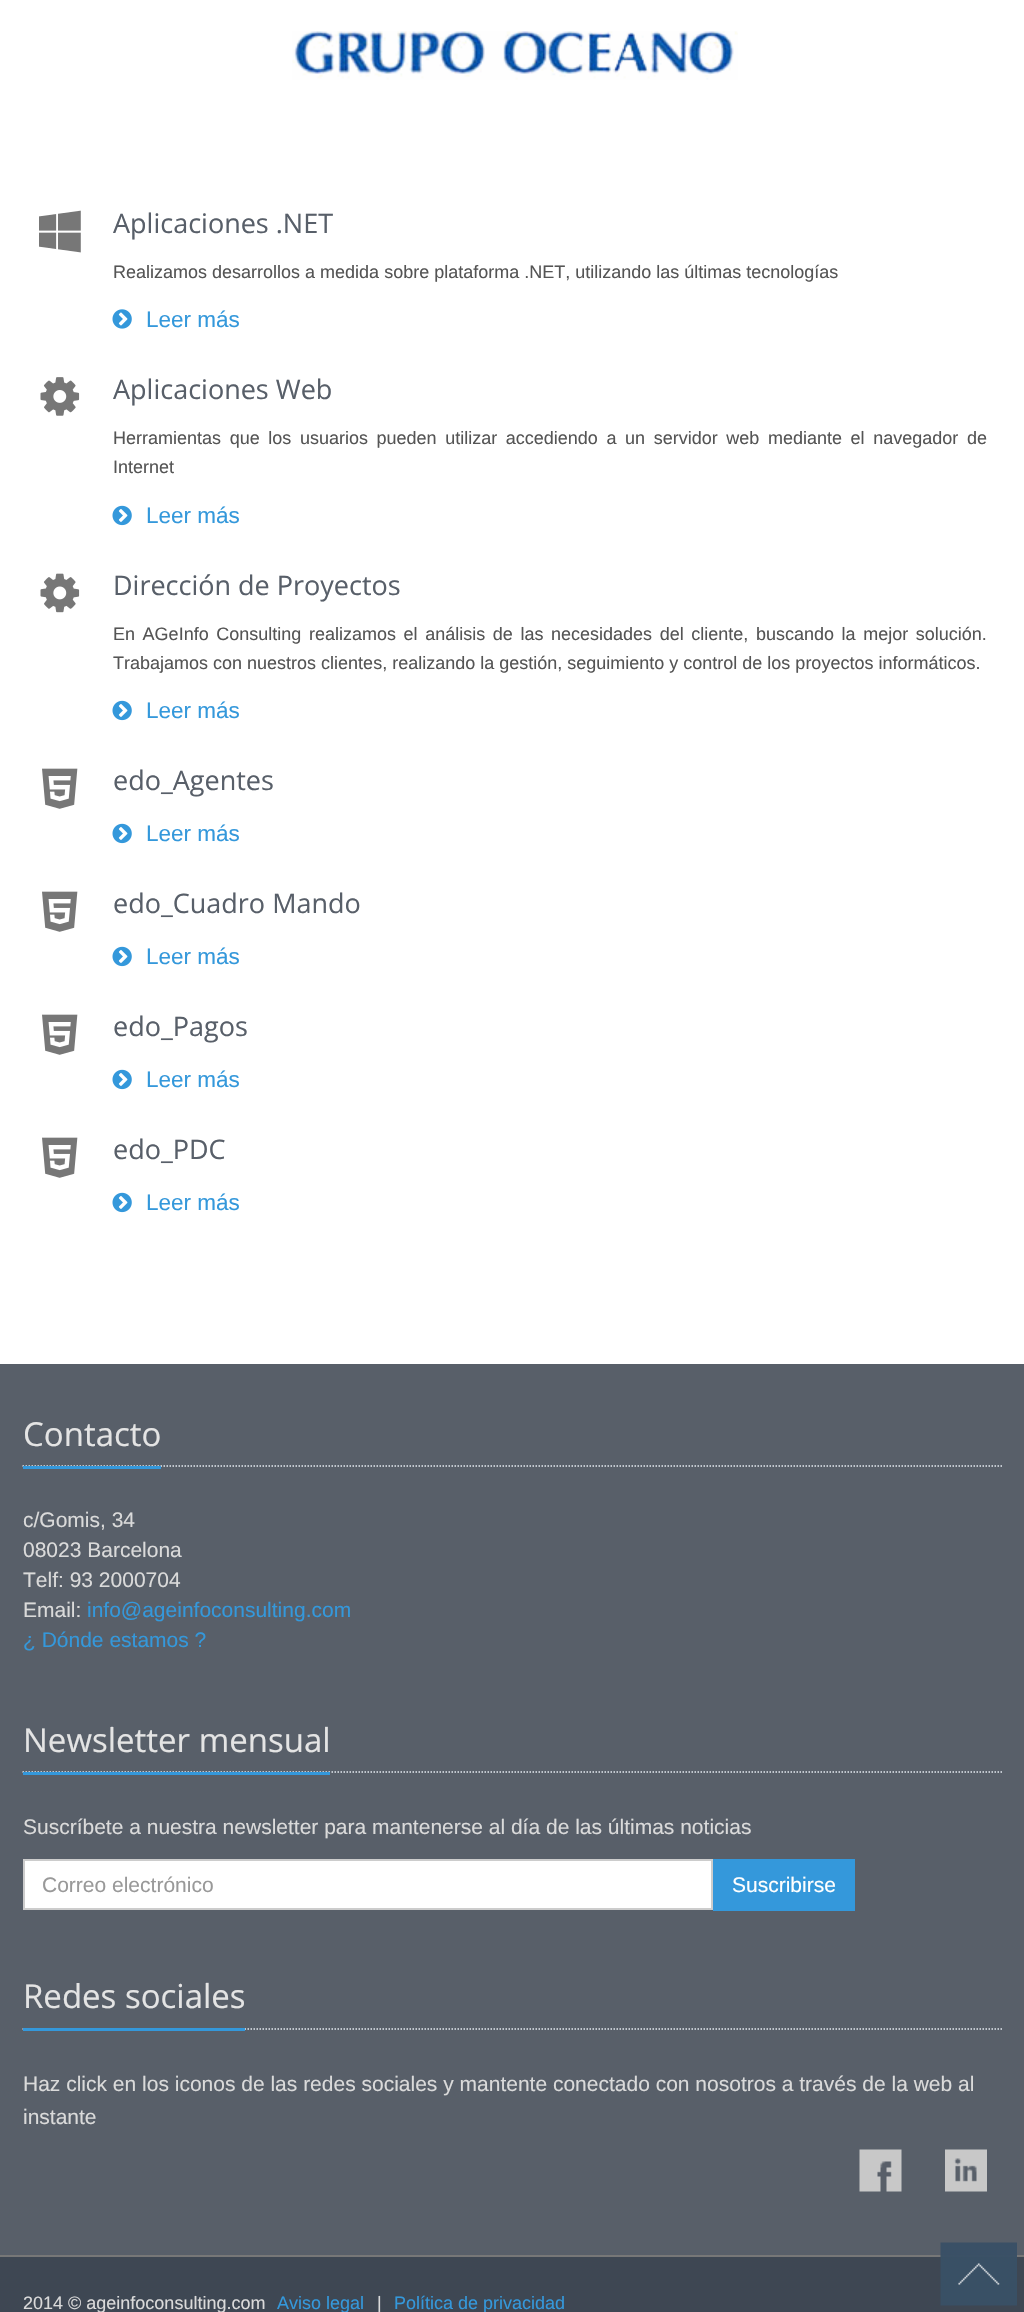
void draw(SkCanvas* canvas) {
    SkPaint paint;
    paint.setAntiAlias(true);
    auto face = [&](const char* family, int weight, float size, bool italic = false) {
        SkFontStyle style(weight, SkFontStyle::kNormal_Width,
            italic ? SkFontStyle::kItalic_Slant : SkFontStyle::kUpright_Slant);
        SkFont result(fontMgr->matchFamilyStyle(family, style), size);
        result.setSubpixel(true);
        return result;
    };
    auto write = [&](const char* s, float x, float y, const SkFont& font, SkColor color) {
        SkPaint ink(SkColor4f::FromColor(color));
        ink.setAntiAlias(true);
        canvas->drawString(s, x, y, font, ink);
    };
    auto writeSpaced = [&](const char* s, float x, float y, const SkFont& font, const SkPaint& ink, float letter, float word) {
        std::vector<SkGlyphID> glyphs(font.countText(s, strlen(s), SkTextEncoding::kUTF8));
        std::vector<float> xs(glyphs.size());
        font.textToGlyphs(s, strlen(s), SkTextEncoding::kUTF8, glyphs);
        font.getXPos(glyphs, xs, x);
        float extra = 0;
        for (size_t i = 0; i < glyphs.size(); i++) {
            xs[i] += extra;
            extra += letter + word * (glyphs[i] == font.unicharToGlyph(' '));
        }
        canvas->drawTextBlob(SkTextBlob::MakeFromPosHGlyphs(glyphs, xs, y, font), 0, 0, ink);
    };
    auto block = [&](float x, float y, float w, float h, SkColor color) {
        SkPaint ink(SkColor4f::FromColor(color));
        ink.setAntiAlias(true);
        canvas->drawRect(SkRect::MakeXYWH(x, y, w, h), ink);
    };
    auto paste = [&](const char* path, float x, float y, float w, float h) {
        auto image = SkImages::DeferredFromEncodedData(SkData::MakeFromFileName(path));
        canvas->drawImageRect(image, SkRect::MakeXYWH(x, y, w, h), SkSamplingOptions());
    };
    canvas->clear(SK_ColorWHITE);
    paste("pic1.png", 292, 31, 446, 49);
    paste("pic2.png", 39, 210, 42, 43);
    auto kFont1 = face("Open Sans", 400, 27);
    write("Aplicaciones .NET", 113, 233, kFont1, SkColorSetRGB(88, 95, 105));
    auto kFont2 = face("Liberation Sans", 400, 18);
    write("Realizamos desarrollos a medida sobre plataforma .NET, utilizando las últimas tecnologías", 113, 278, kFont2, SkColorSetRGB(85, 85, 85));
    paste("pic3.png", 112, 309, 20, 20);
    auto kFont3 = face("Liberation Sans", 400, 22.5f);
    write("Leer más", 146, 327, kFont3, SkColorSetRGB(52, 152, 219));
    paste("pic4.png", 40, 377, 40, 39);
    write("Aplicaciones Web", 113, 399, kFont1, SkColorSetRGB(88, 95, 105));
    paint.setColor(SkColorSetRGB(85, 85, 85));
    writeSpaced("Herramientas que los usuarios pueden utilizar accediendo a un servidor web mediante el navegador de", 113, 444, kFont2, paint, 0, 3.6f);
    write("Internet", 113, 473, kFont2, SkColorSetRGB(85, 85, 85));
    paste("pic5.png", 112, 505, 20, 21);
    write("Leer más", 146, 523, kFont3, SkColorSetRGB(52, 152, 219));
    paste("pic6.png", 40, 573, 40, 40);
    write("Dirección de Proyectos", 113, 595, kFont1, SkColorSetRGB(88, 95, 105));
    writeSpaced("En AGeInfo Consulting realizamos el análisis de las necesidades del cliente, buscando la mejor solución.", 113, 640, kFont2, paint, 0, 2.6f);
    write("Trabajamos con nuestros clientes, realizando la gestión, seguimiento y control de los proyectos informáticos.", 113, 669, kFont2, SkColorSetRGB(85, 85, 85));
    paste("pic5.png", 112, 700, 20, 21);
    write("Leer más", 146, 718, kFont3, SkColorSetRGB(52, 152, 219));
    paste("pic7.png", 42, 768, 36, 41);
    write("edo_Agentes", 113, 790, kFont1, SkColorSetRGB(88, 95, 105));
    paste("pic5.png", 112, 823, 20, 21);
    write("Leer más", 146, 841, kFont3, SkColorSetRGB(52, 152, 219));
    paste("pic7.png", 42, 891, 36, 41);
    write("edo_Cuadro Mando", 113, 913, kFont1, SkColorSetRGB(88, 95, 105));
    paste("pic5.png", 112, 946, 20, 21);
    write("Leer más", 146, 964, kFont3, SkColorSetRGB(52, 152, 219));
    paste("pic7.png", 42, 1014, 36, 41);
    write("edo_Pagos", 113, 1036, kFont1, SkColorSetRGB(88, 95, 105));
    paste("pic5.png", 112, 1069, 20, 21);
    write("Leer más", 146, 1087, kFont3, SkColorSetRGB(52, 152, 219));
    paste("pic7.png", 42, 1137, 36, 41);
    write("edo_PDC", 113, 1159, kFont1, SkColorSetRGB(88, 95, 105));
    paste("pic5.png", 112, 1192, 20, 21);
    write("Leer más", 146, 1210, kFont3, SkColorSetRGB(52, 152, 219));
    block(0, 1364, 1024, 891, SkColorSetRGB(88, 95, 105));
    paint.setStyle(SkPaint::kStroke_Style);
    paint.setStrokeWidth(1.5f);
    paint.setColor(SkColorSetRGB(228, 233, 240));
    paint.setPathEffect(SkDashPathEffect::Make({{1.5f, 1.5f}}, 0));
    canvas->drawPath(SkPathBuilder().moveTo(22.5f, 1466).lineTo(1002, 1466).detach(), paint);
    paint.setPathEffect(nullptr);
    block(23, 1466, 138, 3, SkColorSetRGB(52, 152, 219));
    auto kFont4 = face("Open Sans", 400, 33);
    write("Contacto", 23, 1446, kFont4, SkColorSetRGB(228, 228, 228));
    auto kFont5 = face("Liberation Sans", 400, 21);
    write("c/Gomis, 34", 23, 1527, kFont5, SkColorSetRGB(218, 218, 218));
    write("08023 Barcelona", 23, 1557, kFont5, SkColorSetRGB(218, 218, 218));
    write("Telf: 93 2000704", 23, 1587, kFont5, SkColorSetRGB(218, 218, 218));
    write("Email:", 23, 1617, kFont5, SkColorSetRGB(218, 218, 218));
    write("info@ageinfoconsulting.com", 87, 1617, kFont5, SkColorSetRGB(52, 152, 219));
    write("¿ Dónde estamos ?", 23, 1647, kFont5, SkColorSetRGB(52, 152, 219));
    paint.setPathEffect(SkDashPathEffect::Make({{1.5f, 1.5f}}, 0));
    canvas->drawPath(SkPathBuilder().moveTo(22.5f, 1772).lineTo(1002, 1772).detach(), paint);
    paint.setPathEffect(nullptr);
    block(23, 1772, 307, 3, SkColorSetRGB(52, 152, 219));
    write("Newsletter mensual", 23, 1752, kFont4, SkColorSetRGB(228, 228, 228));
    write("Suscríbete a nuestra newsletter para mantenerse al día de las últimas noticias", 23, 1834, kFont5, SkColorSetRGB(218, 218, 218));
    paint.setStyle(SkPaint::kFill_Style);
    paint.setColor(SK_ColorWHITE);
    canvas->drawRect(SkRect::MakeXYWH(24, 1860, 688, 49), paint);
    paint.setStyle(SkPaint::kStroke_Style);
    paint.setStrokeWidth(2);
    paint.setColor(SkColorSetRGB(204, 204, 204));
    canvas->drawRect(SkRect::MakeXYWH(24, 1860, 688, 49), paint);
    write("Correo electrónico", 42, 1892, kFont5, SkColorSetRGB(153, 153, 153));
    block(713, 1859, 142, 52, SkColorSetRGB(52, 152, 219));
    write("Suscribirse", 732, 1892, kFont5, SK_ColorWHITE);
    paint.setStrokeWidth(1.5f);
    paint.setColor(SkColorSetRGB(228, 233, 240));
    paint.setPathEffect(SkDashPathEffect::Make({{1.5f, 1.5f}}, 0));
    canvas->drawPath(SkPathBuilder().moveTo(22.5f, 2029).lineTo(1002, 2029).detach(), paint);
    paint.setPathEffect(nullptr);
    block(23, 2028, 222, 3, SkColorSetRGB(52, 152, 219));
    write("Redes sociales", 23, 2008, kFont4, SkColorSetRGB(228, 228, 228));
    write("Haz click en los iconos de las redes sociales y mantente conectado con nosotros a través de la web al", 23, 2091, kFont5, SkColorSetRGB(218, 218, 218));
    write("instante", 23, 2124, kFont5, SkColorSetRGB(218, 218, 218));
    paste("pic8.png", 859, 2149, 43, 43);
    paste("pic9.png", 945, 2149, 42, 43);
    block(0, 2257, 1024, 55, SkColorSetRGB(62, 71, 83));
    block(0, 2255, 1024, 2, SkColorSetRGB(119, 119, 119));
    write("2014 © ageinfoconsulting.com", 23, 2309, kFont2, SkColorSetRGB(218, 218, 218));
    write("Aviso legal", 277, 2309, kFont2, SkColorSetRGB(52, 152, 219));
    write("|", 377, 2309, kFont2, SkColorSetRGB(218, 218, 218));
    write("Política de privacidad", 394, 2309, kFont2, SkColorSetRGB(52, 152, 219));
    paste("pic10.png", 940, 2242, 77, 64);
}
